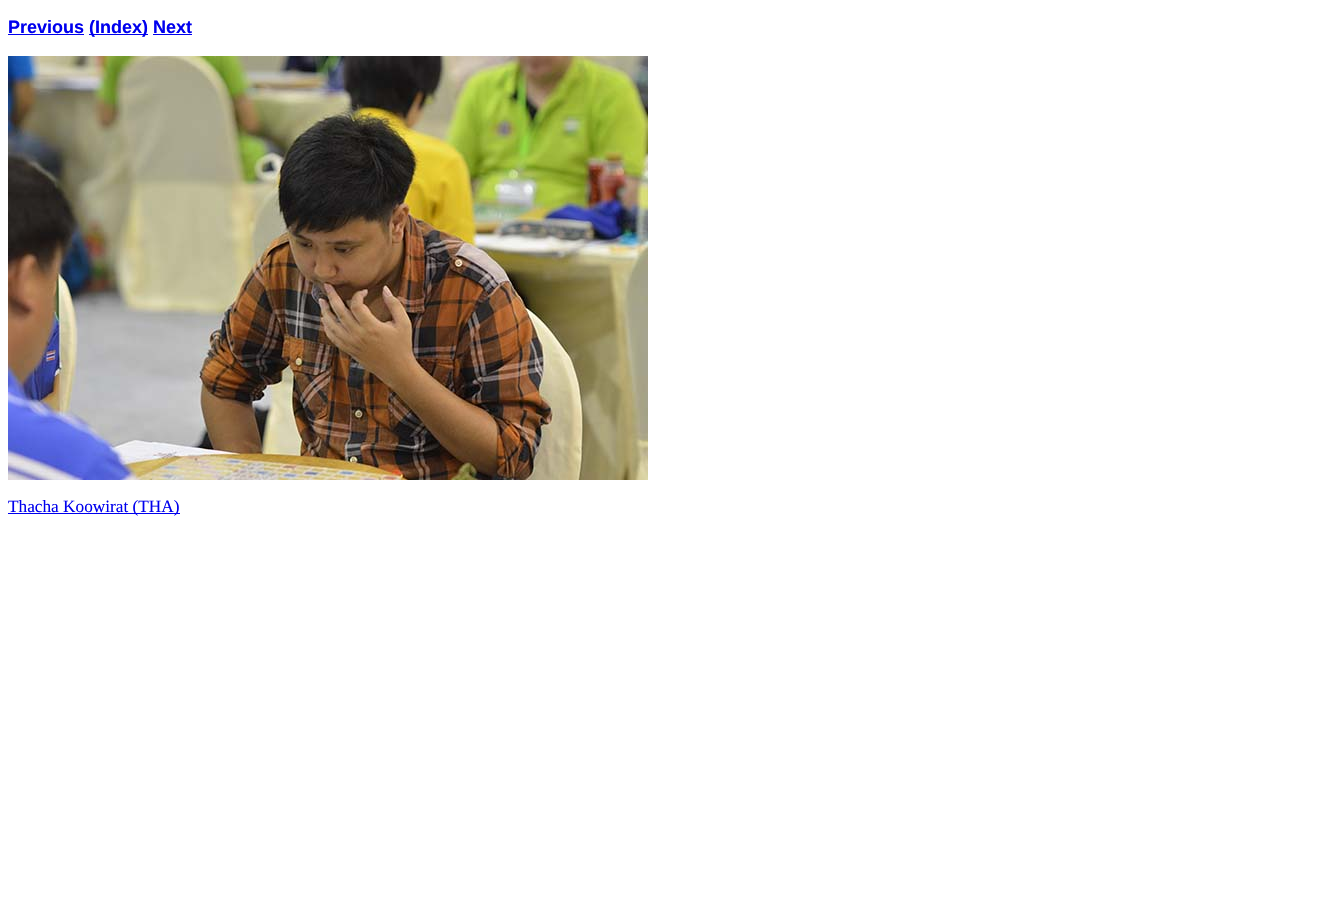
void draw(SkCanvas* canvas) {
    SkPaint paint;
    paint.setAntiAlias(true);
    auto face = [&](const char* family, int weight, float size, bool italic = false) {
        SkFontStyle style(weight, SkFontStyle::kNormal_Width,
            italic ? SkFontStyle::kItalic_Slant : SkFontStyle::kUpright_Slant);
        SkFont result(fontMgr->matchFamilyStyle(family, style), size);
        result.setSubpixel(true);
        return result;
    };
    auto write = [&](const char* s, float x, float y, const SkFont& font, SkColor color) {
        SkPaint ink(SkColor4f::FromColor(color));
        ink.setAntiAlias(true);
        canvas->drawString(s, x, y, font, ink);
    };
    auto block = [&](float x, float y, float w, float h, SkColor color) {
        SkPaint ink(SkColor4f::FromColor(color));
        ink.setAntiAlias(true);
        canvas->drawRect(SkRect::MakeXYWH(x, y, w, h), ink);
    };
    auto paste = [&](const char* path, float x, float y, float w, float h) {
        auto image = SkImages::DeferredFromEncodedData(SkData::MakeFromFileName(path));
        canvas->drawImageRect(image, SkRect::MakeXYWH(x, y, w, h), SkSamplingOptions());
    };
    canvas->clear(SK_ColorWHITE);
    auto kFont1 = face("Liberation Sans", 700, 18);
    write("Previous", 8, 33, kFont1, SkColorSetRGB(0, 0, 238));
    block(8, 34, 76, 1, SkColorSetRGB(0, 0, 238));
    block(89, 34, 59, 1, SkColorSetRGB(0, 0, 238));
    write("(Index) Next", 89, 33, kFont1, SkColorSetRGB(0, 0, 238));
    block(153, 34, 39, 1, SkColorSetRGB(0, 0, 238));
    paste("pic1.png", 8, 56, 640, 424);
    block(8, 513, 172, 1, SkColorSetRGB(0, 0, 238));
    auto kFont2 = face("Liberation Serif", 400, 17.25f);
    write("Thacha Koowirat (THA)", 8, 512, kFont2, SkColorSetRGB(0, 0, 238));
}
